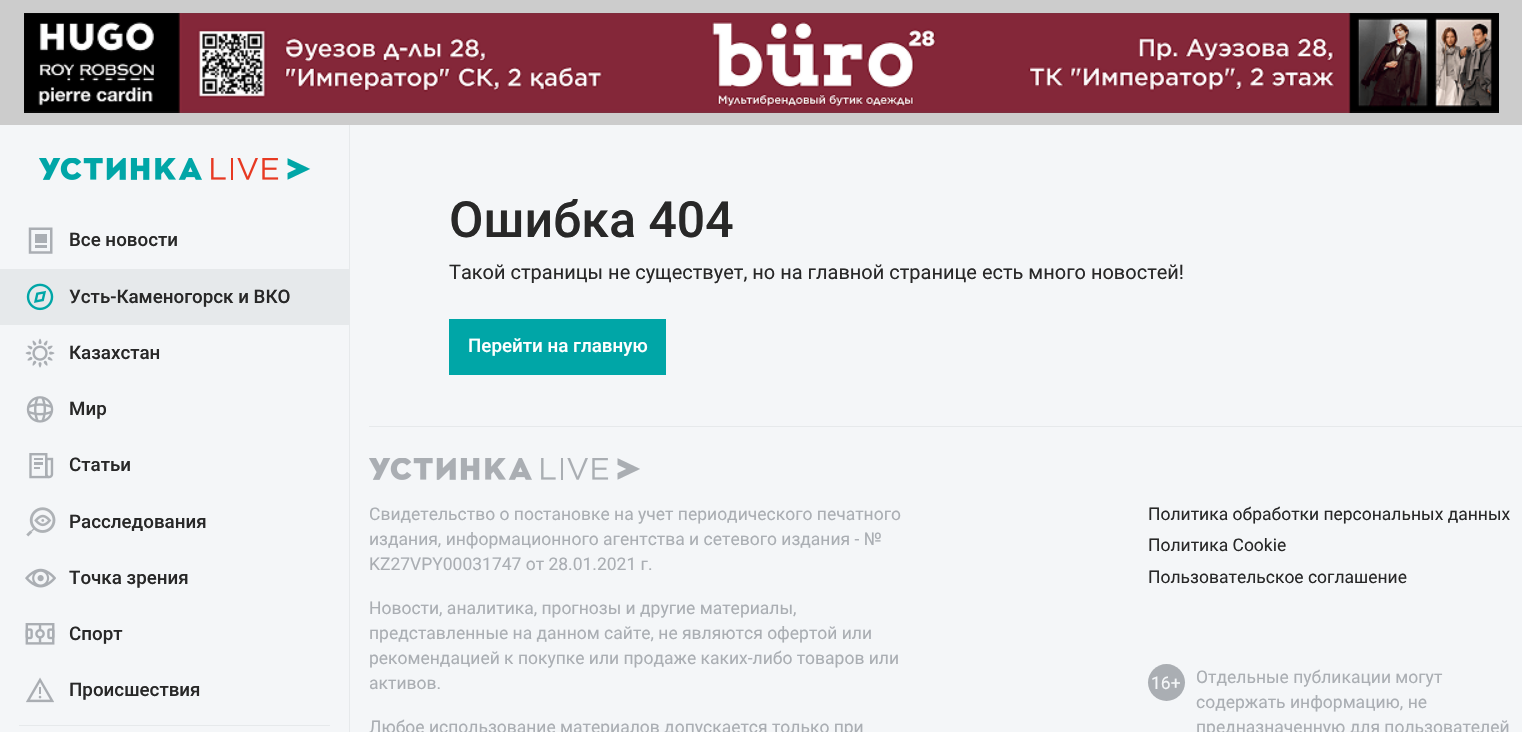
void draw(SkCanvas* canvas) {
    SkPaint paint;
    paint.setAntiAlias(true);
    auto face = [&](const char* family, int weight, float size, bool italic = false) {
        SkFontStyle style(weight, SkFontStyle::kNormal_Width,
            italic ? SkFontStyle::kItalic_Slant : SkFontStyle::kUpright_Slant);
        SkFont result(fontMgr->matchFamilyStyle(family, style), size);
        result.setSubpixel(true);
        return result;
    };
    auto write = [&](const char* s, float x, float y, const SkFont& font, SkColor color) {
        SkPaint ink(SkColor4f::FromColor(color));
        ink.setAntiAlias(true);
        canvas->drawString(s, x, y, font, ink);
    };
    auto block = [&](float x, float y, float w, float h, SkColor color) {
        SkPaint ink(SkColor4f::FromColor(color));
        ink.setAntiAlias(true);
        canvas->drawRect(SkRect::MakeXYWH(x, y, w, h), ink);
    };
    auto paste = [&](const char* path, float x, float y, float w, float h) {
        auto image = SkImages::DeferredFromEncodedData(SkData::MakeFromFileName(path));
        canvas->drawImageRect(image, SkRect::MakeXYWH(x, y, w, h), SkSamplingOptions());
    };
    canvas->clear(SkColorSetRGB(244, 246, 248));
    block(0, 0, 1522, 125, SkColorSetRGB(204, 204, 204));
    paste("pic1.png", 24, 13, 1475, 100);
    block(349, 125, 1, 607, SkColorSetRGB(230, 233, 235));
    paste("pic2.png", 39, 158, 272, 22);
    paste("pic3.png", 28, 227, 25, 27);
    auto kFont1 = face("Roboto", 500, 18.75f);
    write("Все новости", 69, 246, kFont1, SkColorSetRGB(40, 40, 40));
    block(0, 269, 349, 56, SkColorSetRGB(230, 233, 235));
    paste("pic4.png", 26, 283, 28, 28);
    write("Усть-Каменогорск и ВКО", 69, 303, kFont1, SkColorSetRGB(40, 40, 40));
    paste("pic5.png", 25, 338, 30, 30);
    write("Казахстан", 69, 359, kFont1, SkColorSetRGB(40, 40, 40));
    paste("pic6.png", 26, 396, 28, 27);
    write("Мир", 69, 415, kFont1, SkColorSetRGB(40, 40, 40));
    paste("pic7.png", 29, 453, 25, 26);
    write("Статьи", 69, 471, kFont1, SkColorSetRGB(40, 40, 40));
    paste("pic8.png", 26, 507, 30, 30);
    write("Расследования", 69, 528, kFont1, SkColorSetRGB(40, 40, 40));
    paste("pic9.png", 25, 568, 31, 20);
    write("Точка зрения", 69, 584, kFont1, SkColorSetRGB(40, 40, 40));
    paste("pic10.png", 25, 623, 30, 22);
    write("Спорт", 69, 640, kFont1, SkColorSetRGB(40, 40, 40));
    paste("pic11.png", 26, 677, 28, 26);
    write("Происшествия", 69, 696, kFont1, SkColorSetRGB(40, 40, 40));
    block(19, 725, 311, 1, SkColorSetRGB(230, 233, 235));
    auto kFont2 = face("Roboto", 500, 50);
    write("Ошибка 404", 449, 237, kFont2, SkColorSetRGB(40, 40, 40));
    auto kFont3 = face("Roboto", 400, 20);
    write("Такой страницы не существует, но на главной странице есть много новостей!", 449, 279, kFont3, SkColorSetRGB(40, 40, 40));
    block(449, 319, 217, 56, SkColorSetRGB(0, 166, 167));
    write("Перейти на главную", 468, 352, kFont1, SK_ColorWHITE);
    block(369, 426, 1153, 1, SkColorSetRGB(230, 233, 235));
    paste("pic12.png", 369, 458, 271, 22);
    auto kFont4 = face("Roboto", 400, 17.5f);
    write("Свидетельство о постановке на учет периодического печатного", 369, 520, kFont4, SkColorSetRGB(170, 174, 179));
    write("издания, информационного агентства и сетевого издания - №", 369, 545, kFont4, SkColorSetRGB(170, 174, 179));
    write("KZ27VPY00031747 от 28.01.2021 г.", 369, 570, kFont4, SkColorSetRGB(170, 174, 179));
    write("Новости, аналитика, прогнозы и другие материалы,", 369, 614, kFont4, SkColorSetRGB(170, 174, 179));
    write("представленные на данном сайте, не являются офертой или", 369, 639, kFont4, SkColorSetRGB(170, 174, 179));
    write("рекомендацией к покупке или продаже каких-либо товаров или", 369, 664, kFont4, SkColorSetRGB(170, 174, 179));
    write("активов.", 369, 689, kFont4, SkColorSetRGB(170, 174, 179));
    write("Любое использование материалов допускается только при", 369, 733, kFont4, SkColorSetRGB(170, 174, 179));
    write("Политика обработки персональных данных", 1148, 520, kFont4, SkColorSetRGB(40, 40, 40));
    write("Политика Cookie", 1148, 551, kFont4, SkColorSetRGB(40, 40, 40));
    write("Пользовательское соглашение", 1148, 583, kFont4, SkColorSetRGB(40, 40, 40));
    paint.setColor(SkColorSetRGB(170, 174, 179));
    canvas->drawCircle(1166.5f, 682.5f, 18.5f, paint);
    write("16+", 1151, 689, kFont4, SkColorSetRGB(244, 246, 248));
    write("Отдельные публикации могут", 1196, 683, kFont4, SkColorSetRGB(170, 174, 179));
    write("содержать информацию, не", 1196, 708, kFont4, SkColorSetRGB(170, 174, 179));
    write("предназначенную для пользователей", 1196, 733, kFont4, SkColorSetRGB(170, 174, 179));
}
